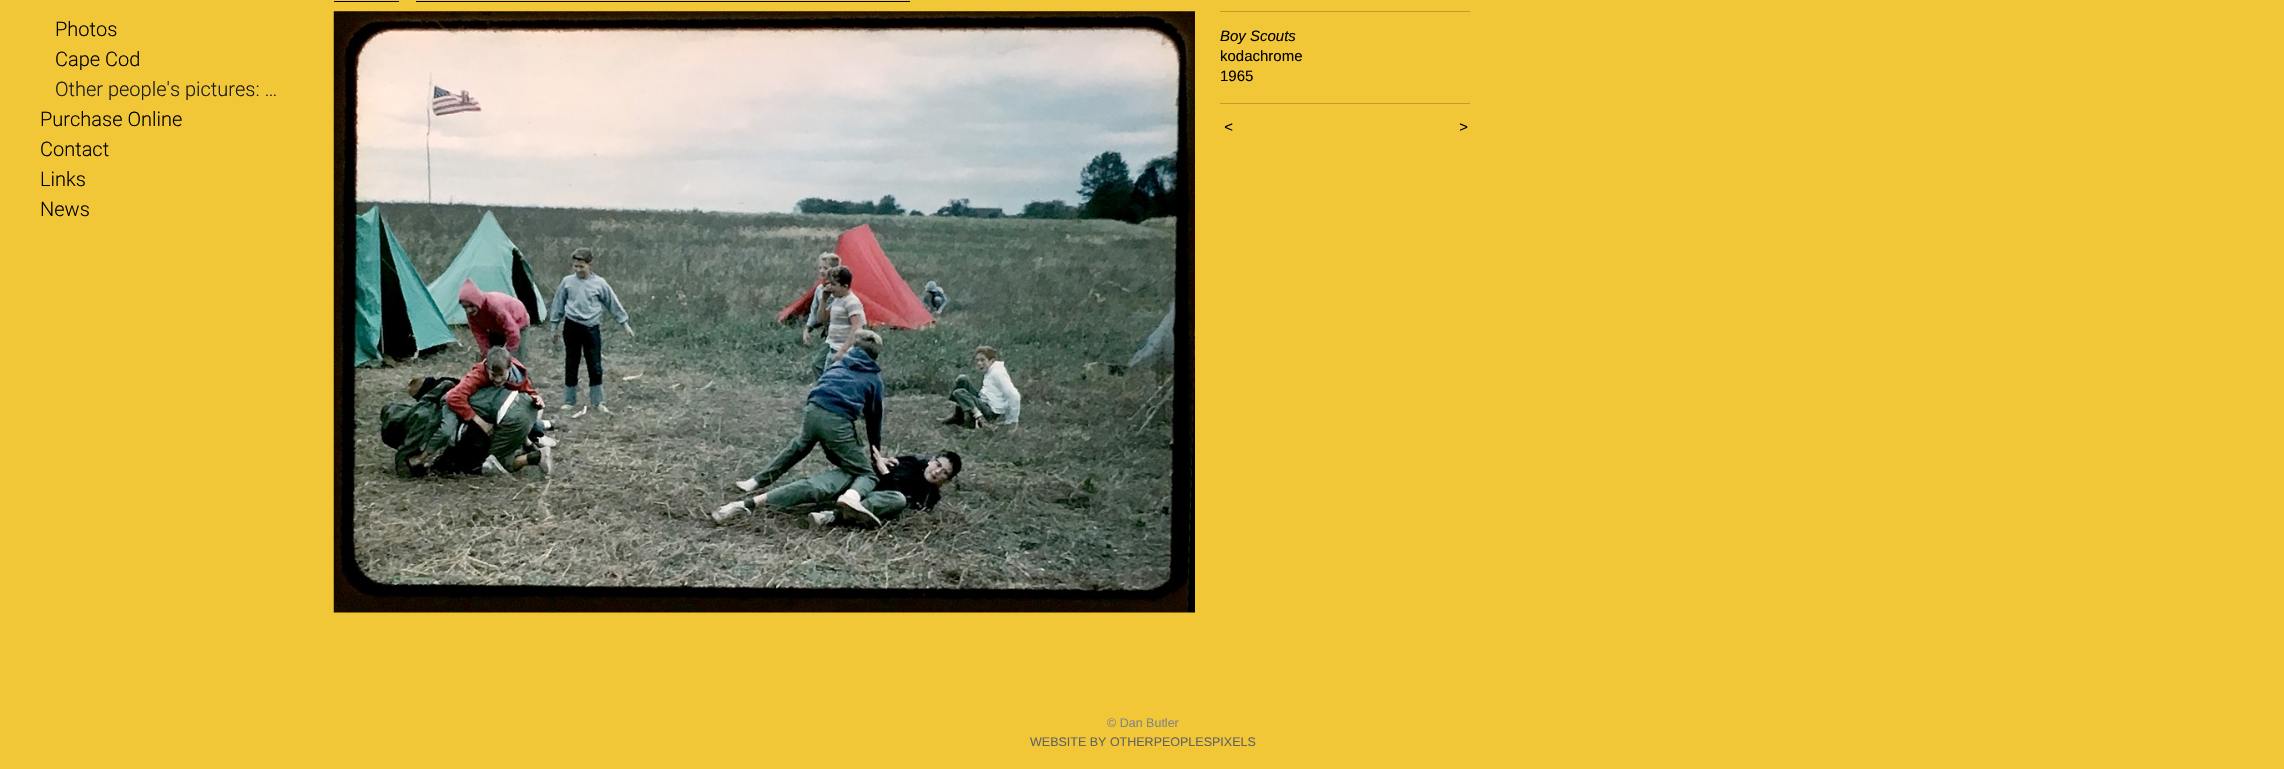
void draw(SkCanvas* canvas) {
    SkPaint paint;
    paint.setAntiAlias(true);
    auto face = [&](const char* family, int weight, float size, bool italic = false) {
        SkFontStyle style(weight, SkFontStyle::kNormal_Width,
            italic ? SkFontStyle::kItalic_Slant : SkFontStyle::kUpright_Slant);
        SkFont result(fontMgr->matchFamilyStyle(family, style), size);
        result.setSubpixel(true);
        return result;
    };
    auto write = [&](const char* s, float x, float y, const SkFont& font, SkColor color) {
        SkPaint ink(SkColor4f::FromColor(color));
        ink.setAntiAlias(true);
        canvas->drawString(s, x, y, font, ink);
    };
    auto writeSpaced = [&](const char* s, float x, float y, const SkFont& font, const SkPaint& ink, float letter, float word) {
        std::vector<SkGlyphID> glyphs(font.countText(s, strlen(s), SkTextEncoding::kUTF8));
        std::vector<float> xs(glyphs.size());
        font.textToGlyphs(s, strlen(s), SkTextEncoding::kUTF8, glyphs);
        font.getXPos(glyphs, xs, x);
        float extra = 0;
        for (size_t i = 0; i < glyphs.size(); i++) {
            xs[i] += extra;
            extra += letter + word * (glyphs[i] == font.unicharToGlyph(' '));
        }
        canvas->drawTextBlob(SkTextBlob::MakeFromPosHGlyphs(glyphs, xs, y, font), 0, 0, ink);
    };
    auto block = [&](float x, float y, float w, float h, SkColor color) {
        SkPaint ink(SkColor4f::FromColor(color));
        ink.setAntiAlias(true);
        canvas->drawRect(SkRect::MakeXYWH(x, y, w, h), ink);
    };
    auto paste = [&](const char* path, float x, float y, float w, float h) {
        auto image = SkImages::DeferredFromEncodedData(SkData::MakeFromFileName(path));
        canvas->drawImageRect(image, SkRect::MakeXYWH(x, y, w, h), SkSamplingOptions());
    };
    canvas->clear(SkColorSetRGB(241, 198, 55));
    auto kFont1 = face("Roboto", 300, 20);
    write("Photos", 55, 36, kFont1, SK_ColorBLACK);
    write("Cape Cod", 55, 66, kFont1, SK_ColorBLACK);
    write("Other people's pictures: …", 55, 96, kFont1, SkColorSetRGB(26, 26, 26));
    write("Purchase Online", 40, 126, kFont1, SK_ColorBLACK);
    write("Contact", 40, 156, kFont1, SK_ColorBLACK);
    write("Links", 40, 186, kFont1, SK_ColorBLACK);
    write("News", 40, 216, kFont1, SK_ColorBLACK);
    block(334, 1, 65, 1, SK_ColorBLACK);
    block(416, 1, 494, 1, SK_ColorBLACK);
    paste("pic1.png", 333, 11, 862, 602);
    block(1220, 11, 250, 1, SkColorSetRGB(193, 158, 44));
    auto kFont2 = face("Liberation Sans", 400, 15, true);
    write("Boy Scouts", 1220, 41, kFont2, SK_ColorBLACK);
    auto kFont3 = face("Liberation Sans", 400, 15);
    write("kodachrome", 1220, 61, kFont3, SK_ColorBLACK);
    write("1965", 1220, 81, kFont3, SK_ColorBLACK);
    block(1220, 103, 250, 1, SkColorSetRGB(193, 158, 44));
    paint.setColor(SK_ColorBLACK);
    writeSpaced("<", 1224, 132, kFont2, paint, 1, 0);
    writeSpaced(">", 1459, 132, kFont2, paint, 1, 0);
    auto kFont4 = face("Liberation Sans", 400, 12.5f);
    write("© Dan Butler", 1107, 727, kFont4, SkColorSetRGB(133, 133, 133));
    write("WEBSITE BY OTHERPEOPLESPIXELS", 1030, 746, kFont4, SkColorSetRGB(99, 99, 99));
}
